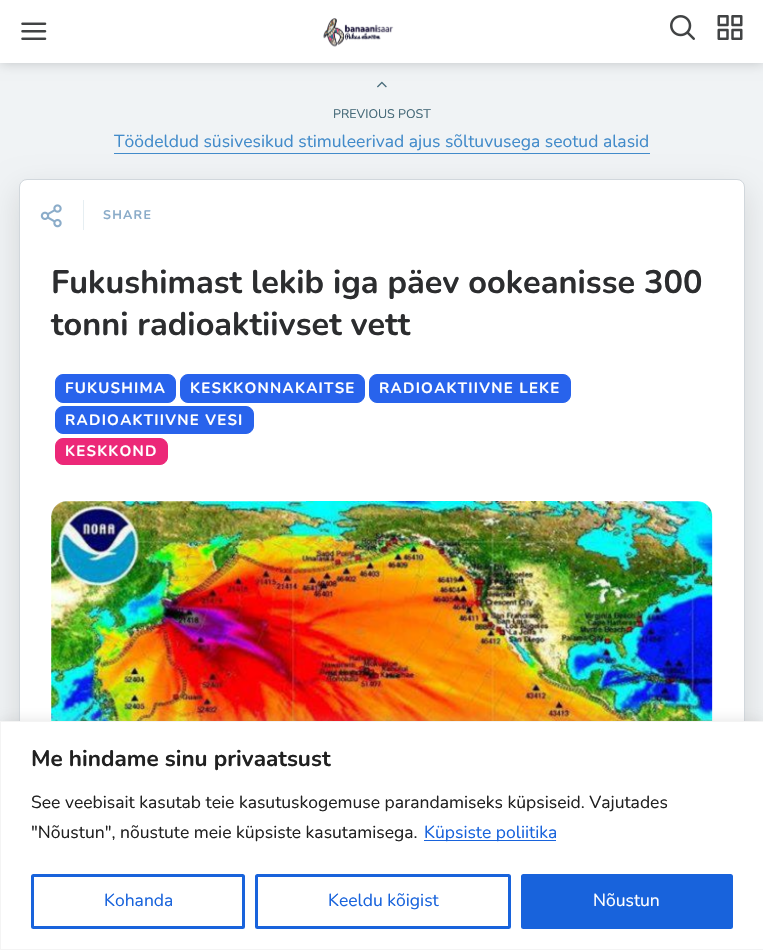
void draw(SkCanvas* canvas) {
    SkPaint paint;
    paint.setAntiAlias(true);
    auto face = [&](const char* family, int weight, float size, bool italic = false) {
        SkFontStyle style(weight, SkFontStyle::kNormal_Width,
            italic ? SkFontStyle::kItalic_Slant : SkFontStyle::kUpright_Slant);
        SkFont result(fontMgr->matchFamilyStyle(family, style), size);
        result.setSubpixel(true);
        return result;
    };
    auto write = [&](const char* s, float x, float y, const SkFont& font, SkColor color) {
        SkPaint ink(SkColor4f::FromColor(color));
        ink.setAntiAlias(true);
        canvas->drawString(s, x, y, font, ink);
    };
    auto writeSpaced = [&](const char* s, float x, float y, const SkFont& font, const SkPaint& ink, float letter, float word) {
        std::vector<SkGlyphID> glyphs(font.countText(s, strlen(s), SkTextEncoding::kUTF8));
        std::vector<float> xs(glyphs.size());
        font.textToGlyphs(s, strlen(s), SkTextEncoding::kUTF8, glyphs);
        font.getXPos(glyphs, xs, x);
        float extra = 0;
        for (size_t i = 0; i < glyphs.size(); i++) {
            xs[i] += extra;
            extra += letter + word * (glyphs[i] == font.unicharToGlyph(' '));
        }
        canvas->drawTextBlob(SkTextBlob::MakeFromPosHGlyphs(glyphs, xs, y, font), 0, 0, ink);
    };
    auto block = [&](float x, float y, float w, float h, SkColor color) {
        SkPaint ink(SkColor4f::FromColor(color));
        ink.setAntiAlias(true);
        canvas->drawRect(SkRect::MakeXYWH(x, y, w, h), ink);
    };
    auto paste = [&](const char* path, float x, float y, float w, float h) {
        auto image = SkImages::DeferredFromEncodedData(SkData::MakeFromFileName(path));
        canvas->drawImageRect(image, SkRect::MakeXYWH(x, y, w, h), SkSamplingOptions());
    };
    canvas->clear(SkColorSetRGB(240, 243, 245));
    paste("pic5.png", 377, 81, 10, 7);
    paint.setColor(SkColorSetARGB(51, 0, 0, 0));
    paint.setMaskFilter(SkMaskFilter::MakeBlur(kNormal_SkBlurStyle, 6));
    canvas->drawRect(SkRect::MakeXYWH(0, 0, 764, 63), paint);
    paint.setMaskFilter(nullptr);
    block(0, 0, 763, 63, SK_ColorWHITE);
    paste("pic1.png", 21, 22, 26, 18);
    paste("pic2.png", 323, 18, 71, 29);
    paste("pic3.png", 670, 15, 25, 25);
    paste("pic4.png", 717, 15, 26, 25);
    auto kFont1 = face("Nunito", 400, 12.5f);
    write("PREVIOUS POST", 333, 118, kFont1, SkColorSetRGB(69, 105, 120));
    auto kFont2 = face("Nunito", 400, 17.5f);
    write("Töödeldud süsivesikud stimuleerivad ajus sõltuvusega seotud alasid", 114, 147, kFont2, SkColorSetRGB(66, 139, 202));
    block(114, 153, 536, 1, SkColorSetRGB(66, 139, 202));
    paint.setColor(SkColorSetARGB(31, 0, 0, 0));
    paint.setMaskFilter(SkMaskFilter::MakeBlur(kNormal_SkBlurStyle, 15));
    canvas->drawRoundRect(SkRect::MakeXYWH(19, 190, 726, 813), 8, 8, paint);
    paint.setMaskFilter(nullptr);
    paint.setColor(SK_ColorWHITE);
    canvas->drawRoundRect(SkRect::MakeXYWH(19.5f, 179.5f, 725, 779), 7.5f, 7.5f, paint);
    paint.setStyle(SkPaint::kStroke_Style);
    paint.setStrokeWidth(1);
    paint.setColor(SkColorSetRGB(209, 215, 220));
    canvas->drawRoundRect(SkRect::MakeXYWH(19.5f, 179.5f, 725, 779), 7.5f, 7.5f, paint);
    block(83, 200, 1, 30, SkColorSetRGB(230, 238, 242));
    paste("pic6.png", 40, 204, 22, 24);
    auto kFont3 = face("Nunito", 700, 12.5f);
    paint.setStyle(SkPaint::kFill_Style);
    paint.setColor(SkColorSetRGB(139, 172, 201));
    writeSpaced("SHARE", 103, 219, kFont3, paint, 1.25f, 0);
    auto kFont4 = face("Nunito", 700, 32.5f);
    write("Fukushimast lekib iga päev ookeanisse 300", 51, 293, kFont4, SkColorSetRGB(44, 45, 47));
    write("tonni radioaktiivset vett", 51, 335, kFont4, SkColorSetRGB(44, 45, 47));
    paint.setColor(SkColorSetRGB(40, 99, 236));
    canvas->drawRoundRect(SkRect::MakeXYWH(55.5f, 374.5f, 120, 28), 7.5f, 7.5f, paint);
    paint.setStyle(SkPaint::kStroke_Style);
    canvas->drawRoundRect(SkRect::MakeXYWH(55.5f, 374.5f, 120, 28), 7.5f, 7.5f, paint);
    auto kFont5 = face("Nunito", 700, 15);
    paint.setStyle(SkPaint::kFill_Style);
    paint.setColor(SK_ColorWHITE);
    writeSpaced("FUKUSHIMA", 65, 393, kFont5, paint, 1.25f, 0);
    paint.setColor(SkColorSetRGB(40, 99, 236));
    canvas->drawRoundRect(SkRect::MakeXYWH(180.5f, 374.5f, 184, 28), 7.5f, 7.5f, paint);
    paint.setStyle(SkPaint::kStroke_Style);
    canvas->drawRoundRect(SkRect::MakeXYWH(180.5f, 374.5f, 184, 28), 7.5f, 7.5f, paint);
    paint.setStyle(SkPaint::kFill_Style);
    paint.setColor(SK_ColorWHITE);
    writeSpaced("KESKKONNAKAITSE", 190, 393, kFont5, paint, 1.25f, 0);
    paint.setColor(SkColorSetRGB(40, 99, 236));
    canvas->drawRoundRect(SkRect::MakeXYWH(369.5f, 374.5f, 201, 28), 7.5f, 7.5f, paint);
    paint.setStyle(SkPaint::kStroke_Style);
    canvas->drawRoundRect(SkRect::MakeXYWH(369.5f, 374.5f, 201, 28), 7.5f, 7.5f, paint);
    paint.setStyle(SkPaint::kFill_Style);
    paint.setColor(SK_ColorWHITE);
    writeSpaced("RADIOAKTIIVNE LEKE", 379, 393, kFont5, paint, 1.25f, 0);
    paint.setColor(SkColorSetRGB(40, 99, 236));
    canvas->drawRoundRect(SkRect::MakeXYWH(55.5f, 406.5f, 198, 27), 7.5f, 7.5f, paint);
    paint.setStyle(SkPaint::kStroke_Style);
    canvas->drawRoundRect(SkRect::MakeXYWH(55.5f, 406.5f, 198, 27), 7.5f, 7.5f, paint);
    paint.setStyle(SkPaint::kFill_Style);
    paint.setColor(SK_ColorWHITE);
    writeSpaced("RADIOAKTIIVNE VESI", 65, 425, kFont5, paint, 1.25f, 0);
    paint.setColor(SkColorSetRGB(236, 40, 120));
    canvas->drawRoundRect(SkRect::MakeXYWH(55.5f, 438.5f, 112, 26), 7.5f, 7.5f, paint);
    paint.setStyle(SkPaint::kStroke_Style);
    canvas->drawRoundRect(SkRect::MakeXYWH(55.5f, 438.5f, 112, 26), 7.5f, 7.5f, paint);
    paint.setStyle(SkPaint::kFill_Style);
    paint.setColor(SK_ColorWHITE);
    writeSpaced("KESKKOND", 65, 456, kFont5, paint, 1.25f, 0);
    paste("pic7.png", 51, 501, 662, 220);
    paint.setColor(SkColorSetARGB(77, 172, 171, 171));
    paint.setMaskFilter(SkMaskFilter::MakeBlur(kNormal_SkBlurStyle, 6));
    canvas->drawRect(SkRect::MakeXYWH(0, 720, 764, 229), paint);
    paint.setMaskFilter(nullptr);
    paint.setColor(SK_ColorWHITE);
    canvas->drawRect(SkRect::MakeXYWH(0.5f, 721.5f, 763, 228), paint);
    paint.setStyle(SkPaint::kStroke_Style);
    paint.setColor(SkColorSetRGB(244, 244, 244));
    canvas->drawRect(SkRect::MakeXYWH(0.5f, 721.5f, 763, 228), paint);
    auto kFont6 = face("Nunito", 700, 22.5f);
    write("Me hindame sinu privaatsust", 31, 766, kFont6, SkColorSetRGB(33, 33, 33));
    write("See veebisait kasutab teie kasutuskogemuse parandamiseks küpsiseid. Vajutades", 31, 808, kFont2, SkColorSetRGB(33, 33, 33));
    write("\"Nõustun\", nõustute meie küpsiste kasutamisega.", 31, 838, kFont2, SkColorSetRGB(33, 33, 33));
    block(424, 840, 132, 1, SkColorSetRGB(24, 99, 220));
    write("Küpsiste poliitika", 424, 838, kFont2, SkColorSetRGB(24, 99, 220));
    paint.setStrokeWidth(3);
    paint.setColor(SkColorSetRGB(24, 99, 220));
    canvas->drawRoundRect(SkRect::MakeXYWH(32.5f, 875.5f, 211, 52), 1, 1, paint);
    write("Kohanda", 104, 906, kFont2, SkColorSetRGB(24, 99, 220));
    canvas->drawRoundRect(SkRect::MakeXYWH(256.5f, 875.5f, 253, 52), 1, 1, paint);
    write("Keeldu kõigist", 328, 906, kFont2, SkColorSetRGB(24, 99, 220));
    paint.setStyle(SkPaint::kFill_Style);
    canvas->drawRoundRect(SkRect::MakeXYWH(522.5f, 875.5f, 209, 52), 1, 1, paint);
    paint.setStyle(SkPaint::kStroke_Style);
    canvas->drawRoundRect(SkRect::MakeXYWH(522.5f, 875.5f, 209, 52), 1, 1, paint);
    write("Nõustun", 593, 906, kFont2, SK_ColorWHITE);
}
